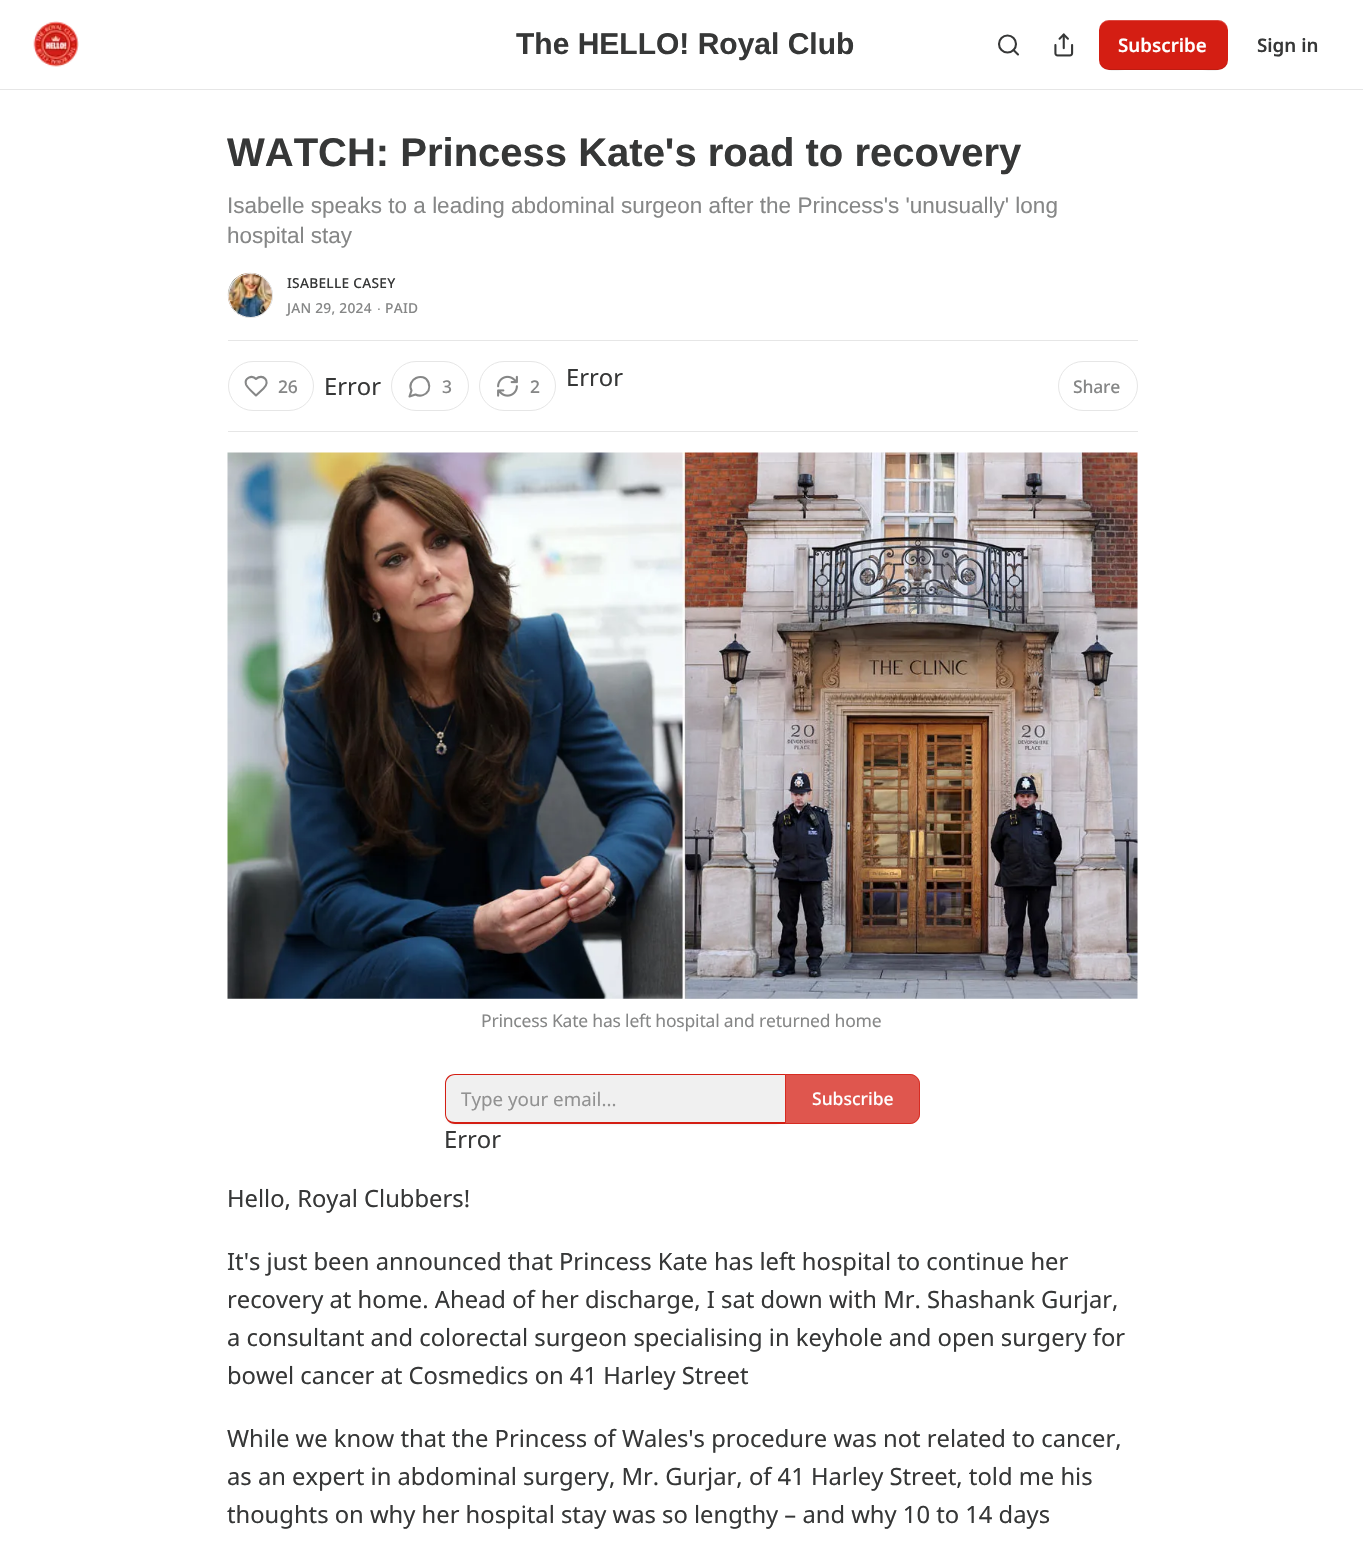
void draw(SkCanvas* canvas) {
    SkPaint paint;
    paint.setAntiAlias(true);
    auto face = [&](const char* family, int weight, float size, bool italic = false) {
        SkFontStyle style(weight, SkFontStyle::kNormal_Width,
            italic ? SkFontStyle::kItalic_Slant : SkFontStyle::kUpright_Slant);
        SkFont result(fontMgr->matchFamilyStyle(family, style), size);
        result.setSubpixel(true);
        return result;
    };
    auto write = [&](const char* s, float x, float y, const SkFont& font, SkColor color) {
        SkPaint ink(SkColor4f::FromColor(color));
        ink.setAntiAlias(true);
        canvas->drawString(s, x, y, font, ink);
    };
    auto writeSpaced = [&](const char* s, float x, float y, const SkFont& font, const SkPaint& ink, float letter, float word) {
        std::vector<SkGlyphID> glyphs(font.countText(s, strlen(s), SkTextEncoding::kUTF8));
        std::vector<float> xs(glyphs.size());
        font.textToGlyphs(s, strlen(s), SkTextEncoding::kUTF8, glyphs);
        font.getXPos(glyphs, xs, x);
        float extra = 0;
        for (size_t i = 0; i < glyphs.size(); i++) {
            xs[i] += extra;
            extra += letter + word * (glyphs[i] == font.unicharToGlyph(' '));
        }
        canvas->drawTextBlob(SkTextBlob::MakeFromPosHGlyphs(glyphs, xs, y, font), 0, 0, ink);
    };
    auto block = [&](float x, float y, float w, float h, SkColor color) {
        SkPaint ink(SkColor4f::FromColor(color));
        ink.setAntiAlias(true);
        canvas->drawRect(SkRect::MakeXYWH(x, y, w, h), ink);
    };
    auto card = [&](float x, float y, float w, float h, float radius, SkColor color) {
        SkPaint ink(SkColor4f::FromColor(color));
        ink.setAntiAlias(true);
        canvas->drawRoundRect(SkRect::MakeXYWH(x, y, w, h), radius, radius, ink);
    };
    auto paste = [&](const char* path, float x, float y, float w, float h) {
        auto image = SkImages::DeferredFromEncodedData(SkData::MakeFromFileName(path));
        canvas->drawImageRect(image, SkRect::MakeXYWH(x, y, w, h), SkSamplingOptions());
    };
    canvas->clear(SK_ColorWHITE);
    block(0, 89, 1363, 1, SkColorSetRGB(230, 230, 230));
    paste("pic1.png", 33, 21, 46, 46);
    auto kFont1 = face("Liberation Sans", 700, 30);
    write("The HELLO! Royal Club", 516, 54, kFont1, SkColorSetRGB(54, 55, 55));
    paint.setStyle(SkPaint::kStroke_Style);
    paint.setStrokeWidth(2.1f);
    paint.setColor(SkColorSetRGB(54, 55, 55));
    canvas->drawCircle(1007.5f, 44, 8.5f, paint);
    paint.setStrokeCap(SkPaint::kRound_Cap);
    paint.setStrokeJoin(SkPaint::kRound_Join);
    canvas->drawPath(SkPathBuilder().moveTo(1018, 54.5f).lineTo(1013.5f, 50).detach(), paint);
    paste("pic2.png", 1054, 33, 20, 24);
    card(1099, 20, 129, 50, 10, SkColorSetRGB(212, 30, 19));
    paint.setStyle(SkPaint::kFill_Style);
    paint.setColor(SkColorSetARGB(26, 0, 0, 0));
    canvas->drawPath(SkPathBuilder().moveTo(1099, 59).cubicTo(1099, 74, 1117, 70, 1127, 70).lineTo(1200, 70).cubicTo(1210, 70, 1228, 74, 1228, 59).cubicTo(1228, 64, 1223, 69, 1218, 69).lineTo(1109, 69).cubicTo(1103, 69, 1099, 64, 1099, 59).close().detach(), paint);
    paint.setColor(SkColorSetARGB(51, 255, 255, 255));
    canvas->drawPath(SkPathBuilder().moveTo(1109, 21).lineTo(1218, 21).cubicTo(1223, 21, 1228, 26, 1228, 31).cubicTo(1228, 16, 1210, 20, 1200, 20).lineTo(1127, 20).cubicTo(1117, 20, 1099, 16, 1099, 31).cubicTo(1099, 26, 1103, 21, 1109, 21).close().detach(), paint);
    auto kFont2 = face("Noto Sans", 600, 18.75f);
    write("Subscribe", 1118, 52, kFont2, SK_ColorWHITE);
    write("Sign in", 1257, 52, kFont2, SkColorSetRGB(54, 55, 55));
    auto kFont3 = face("Liberation Sans", 700, 40);
    write("WATCH: Princess Kate's road to recovery", 227, 166, kFont3, SkColorSetRGB(54, 55, 55));
    auto kFont4 = face("Liberation Sans", 400, 22.5f);
    write("Isabelle speaks to a leading abdominal surgeon after the Princess's 'unusually' long", 227, 213, kFont4, SkColorSetRGB(134, 135, 135));
    write("hospital stay", 227, 243, kFont4, SkColorSetRGB(134, 135, 135));
    paint.setStyle(SkPaint::kStroke_Style);
    paint.setStrokeWidth(1);
    paint.setStrokeCap(SkPaint::kButt_Cap);
    paint.setStrokeJoin(SkPaint::kMiter_Join);
    paint.setColor(SkColorSetRGB(230, 230, 230));
    canvas->drawCircle(250.5f, 295.5f, 22, paint);
    paste("pic3.png", 227, 272, 46, 46);
    canvas->drawCircle(250.5f, 295.5f, 22, paint);
    auto kFont5 = face("Noto Sans", 500, 13.75f);
    paint.setStyle(SkPaint::kFill_Style);
    paint.setColor(SkColorSetRGB(54, 55, 55));
    writeSpaced("ISABELLE CASEY", 287, 288, kFont5, paint, 0.25f, 0);
    paint.setColor(SkColorSetRGB(134, 135, 135));
    writeSpaced("JAN 29, 2024", 287, 313, kFont5, paint, 0.25f, 0);
    auto kFont6 = face("Liberation Sans", 400, 13.75f);
    writeSpaced("∙", 377, 313, kFont6, paint, 0.25f, 0);
    writeSpaced("PAID", 385, 313, kFont5, paint, 0.25f, 0);
    block(228, 340, 910, 1, SkColorSetRGB(230, 230, 230));
    block(228, 431, 910, 1, SkColorSetRGB(230, 230, 230));
    paint.setStyle(SkPaint::kStroke_Style);
    paint.setColor(SkColorSetRGB(230, 230, 230));
    canvas->drawRoundRect(SkRect::MakeXYWH(228.5f, 361.5f, 85, 49), 24.5f, 24.5f, paint);
    paint.setStrokeWidth(2.1f);
    paint.setStrokeCap(SkPaint::kRound_Cap);
    paint.setStrokeJoin(SkPaint::kRound_Join);
    paint.setColor(SkColorSetRGB(134, 135, 135));
    canvas->drawPath(SkPathBuilder().moveTo(263.5f, 388.5f).cubicTo(271.5f, 381, 262.5f, 373, 256, 379).cubicTo(252, 374.5f, 244, 378, 246, 384.5f).cubicTo(247, 387.5f, 253.5f, 393, 256, 395.5f).close().detach(), paint);
    auto kFont7 = face("Noto Sans", 500, 17.5f);
    paint.setStyle(SkPaint::kFill_Style);
    writeSpaced("26", 278, 393, kFont7, paint, -0.2f, 0);
    auto kFont8 = face("Noto Sans", 400, 23.75f);
    write("Error", 324, 395, kFont8, SkColorSetRGB(54, 55, 55));
    paint.setStyle(SkPaint::kStroke_Style);
    paint.setStrokeWidth(1);
    paint.setStrokeCap(SkPaint::kButt_Cap);
    paint.setStrokeJoin(SkPaint::kMiter_Join);
    paint.setColor(SkColorSetRGB(230, 230, 230));
    canvas->drawRoundRect(SkRect::MakeXYWH(391.5f, 361.5f, 77, 49), 24.5f, 24.5f, paint);
    paint.setStrokeWidth(2.1f);
    paint.setStrokeCap(SkPaint::kRound_Cap);
    paint.setStrokeJoin(SkPaint::kRound_Join);
    paint.setColor(SkColorSetRGB(134, 135, 135));
    canvas->drawPath(SkPathBuilder().moveTo(415.5f, 394.5f).cubicTo(420.5f, 397, 426, 395, 428.5f, 390.5f).cubicTo(429.5f, 388, 429.5f, 385, 428.5f, 382.5f).cubicTo(423.5f, 371, 406, 379.5f, 411.5f, 390.5f).lineTo(409.5f, 396.5f).close().detach(), paint);
    paint.setStyle(SkPaint::kFill_Style);
    writeSpaced("3", 442, 393, kFont7, paint, -0.2f, 0);
    paint.setStyle(SkPaint::kStroke_Style);
    paint.setStrokeWidth(1);
    paint.setStrokeCap(SkPaint::kButt_Cap);
    paint.setStrokeJoin(SkPaint::kMiter_Join);
    paint.setColor(SkColorSetRGB(230, 230, 230));
    canvas->drawRoundRect(SkRect::MakeXYWH(479.5f, 361.5f, 76, 49), 24.5f, 24.5f, paint);
    paste("pic4.png", 497, 375, 21, 22);
    paint.setStyle(SkPaint::kFill_Style);
    paint.setColor(SkColorSetRGB(134, 135, 135));
    writeSpaced("2", 530, 393, kFont7, paint, -0.2f, 0);
    write("Error", 566, 386, kFont8, SkColorSetRGB(54, 55, 55));
    paint.setStyle(SkPaint::kStroke_Style);
    paint.setColor(SkColorSetRGB(230, 230, 230));
    canvas->drawRoundRect(SkRect::MakeXYWH(1058.5f, 361.5f, 79, 49), 24.5f, 24.5f, paint);
    paint.setStyle(SkPaint::kFill_Style);
    paint.setColor(SkColorSetRGB(134, 135, 135));
    writeSpaced("Share", 1073, 393, kFont7, paint, -0.2f, 0);
    paste("pic5.png", 227, 452, 911, 547);
    auto kFont9 = face("Noto Sans", 400, 17.5f);
    writeSpaced("Princess Kate has left hospital and returned home", 481, 1027, kFont9, paint, -0.2f, 0);
    paint.setColor(SkColorSetARGB(13, 0, 0, 0));
    paint.setMaskFilter(SkMaskFilter::MakeBlur(kNormal_SkBlurStyle, 1));
    canvas->drawRoundRect(SkRect::MakeXYWH(445, 1075, 340, 50), 10, 10, paint);
    paint.setMaskFilter(nullptr);
    paint.setColor(SkColorSetRGB(240, 240, 240));
    canvas->drawPath(SkPathBuilder().moveTo(455, 1075).lineTo(785, 1075).lineTo(785, 1123).lineTo(455, 1123).cubicTo(450, 1123, 446, 1119, 446, 1114).lineTo(446, 1084).cubicTo(446, 1079, 450, 1075, 455, 1075).close().detach(), paint);
    paint.setColor(SkColorSetRGB(212, 30, 19));
    canvas->drawPath(SkPathBuilder(SkPathFillType::kEvenOdd).moveTo(455, 1074).lineTo(785, 1074).lineTo(785, 1124).lineTo(455, 1124).cubicTo(449, 1124, 445, 1119, 445, 1114).lineTo(445, 1084).cubicTo(445, 1078, 449, 1074, 455, 1074).close().moveTo(455, 1075).lineTo(785, 1075).lineTo(785, 1122).lineTo(455, 1122).cubicTo(450, 1122, 446, 1119, 446, 1114).lineTo(446, 1084).cubicTo(446, 1079, 450, 1075, 455, 1075).close().detach(), paint);
    auto kFont10 = face("Noto Sans", 400, 18.75f);
    write("Type your email...", 461, 1106, kFont10, SkColorSetRGB(146, 146, 146));
    paint.setColor(SkColorSetARGB(191, 212, 30, 19));
    canvas->drawPath(SkPathBuilder().moveTo(785, 1074).lineTo(910, 1074).cubicTo(915.5f, 1074, 920, 1078.5f, 920, 1084).lineTo(920, 1114).cubicTo(920, 1119.5f, 915.5f, 1124, 910, 1124).lineTo(785, 1124).close().detach(), paint);
    paint.setStyle(SkPaint::kStroke_Style);
    canvas->drawPath(SkPathBuilder().moveTo(785.5f, 1074.5f).lineTo(910, 1074.5f).cubicTo(915, 1074.5f, 919.5f, 1079, 919.5f, 1084).lineTo(919.5f, 1114).cubicTo(919.5f, 1119, 915, 1123.5f, 910, 1123.5f).lineTo(785.5f, 1123.5f).close().detach(), paint);
    write("Subscribe", 812, 1105, kFont7, SK_ColorWHITE);
    write("Error", 444, 1148, kFont8, SkColorSetRGB(54, 55, 55));
    write("Hello, Royal Clubbers!", 227, 1207, kFont8, SkColorSetRGB(54, 55, 55));
    write("It's just been announced that Princess Kate has left hospital to continue her", 227, 1270, kFont8, SkColorSetRGB(54, 55, 55));
    write("recovery at home. Ahead of her discharge, I sat down with Mr. Shashank Gurjar,", 227, 1308, kFont8, SkColorSetRGB(54, 55, 55));
    write("a consultant and colorectal surgeon specialising in keyhole and open surgery for", 227, 1346, kFont8, SkColorSetRGB(54, 55, 55));
    write("bowel cancer at Cosmedics on 41 Harley Street", 227, 1384, kFont8, SkColorSetRGB(54, 55, 55));
    write("While we know that the Princess of Wales's procedure was not related to cancer,", 227, 1447, kFont8, SkColorSetRGB(54, 55, 55));
    write("as an expert in abdominal surgery, Mr. Gurjar, of 41 Harley Street, told me his", 227, 1485, kFont8, SkColorSetRGB(54, 55, 55));
    write("thoughts on why her hospital stay was so lengthy – and why 10 to 14 days", 227, 1523, kFont8, SkColorSetRGB(54, 55, 55));
}
